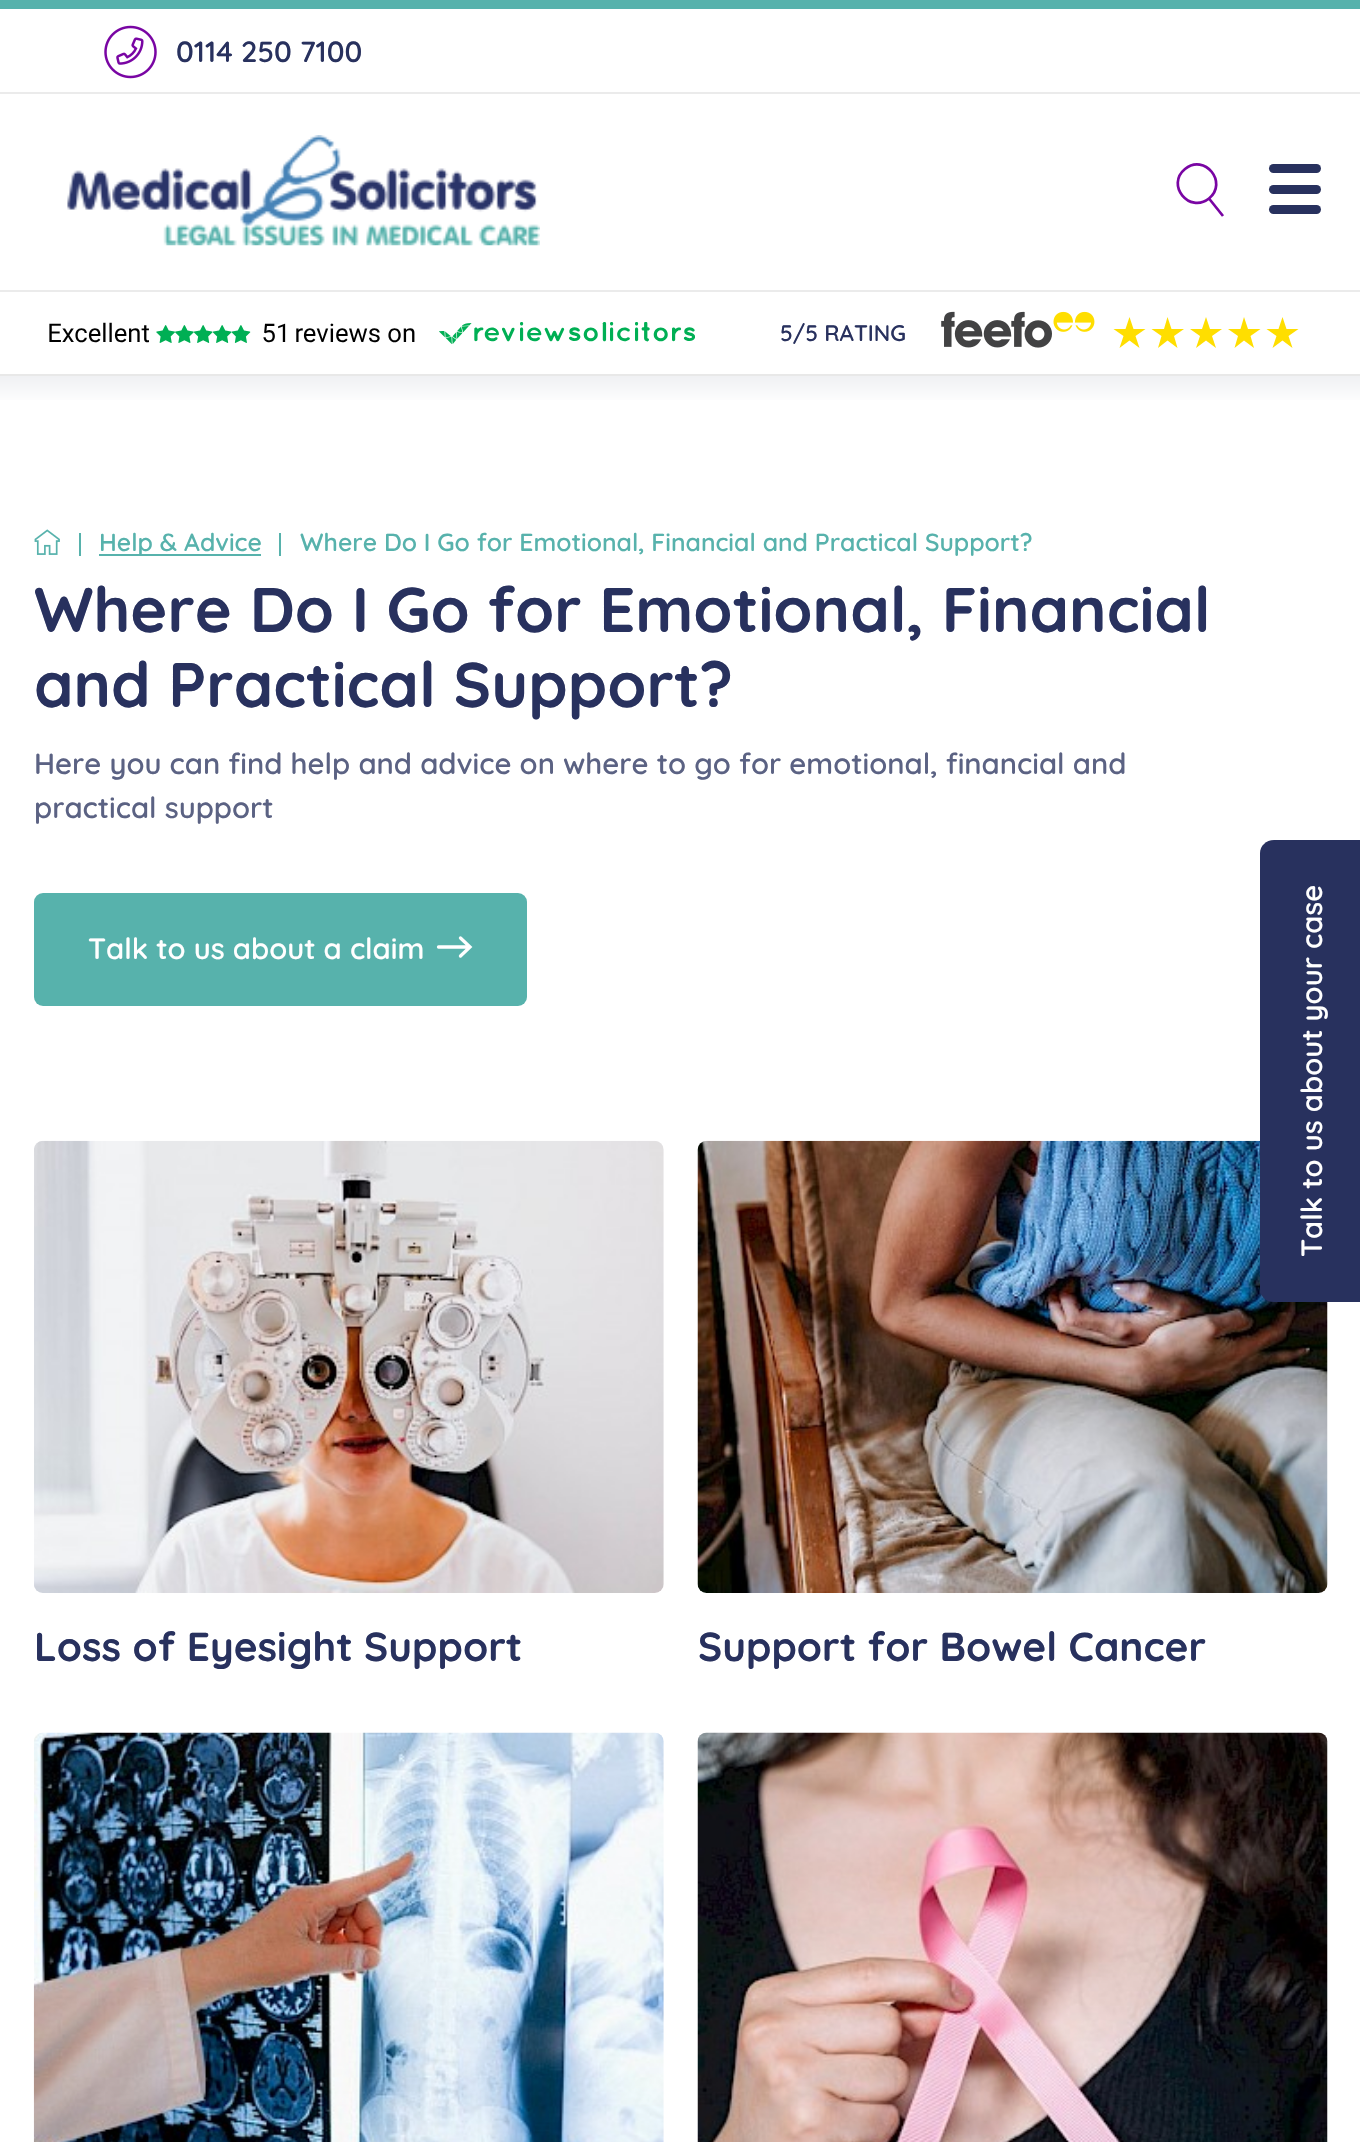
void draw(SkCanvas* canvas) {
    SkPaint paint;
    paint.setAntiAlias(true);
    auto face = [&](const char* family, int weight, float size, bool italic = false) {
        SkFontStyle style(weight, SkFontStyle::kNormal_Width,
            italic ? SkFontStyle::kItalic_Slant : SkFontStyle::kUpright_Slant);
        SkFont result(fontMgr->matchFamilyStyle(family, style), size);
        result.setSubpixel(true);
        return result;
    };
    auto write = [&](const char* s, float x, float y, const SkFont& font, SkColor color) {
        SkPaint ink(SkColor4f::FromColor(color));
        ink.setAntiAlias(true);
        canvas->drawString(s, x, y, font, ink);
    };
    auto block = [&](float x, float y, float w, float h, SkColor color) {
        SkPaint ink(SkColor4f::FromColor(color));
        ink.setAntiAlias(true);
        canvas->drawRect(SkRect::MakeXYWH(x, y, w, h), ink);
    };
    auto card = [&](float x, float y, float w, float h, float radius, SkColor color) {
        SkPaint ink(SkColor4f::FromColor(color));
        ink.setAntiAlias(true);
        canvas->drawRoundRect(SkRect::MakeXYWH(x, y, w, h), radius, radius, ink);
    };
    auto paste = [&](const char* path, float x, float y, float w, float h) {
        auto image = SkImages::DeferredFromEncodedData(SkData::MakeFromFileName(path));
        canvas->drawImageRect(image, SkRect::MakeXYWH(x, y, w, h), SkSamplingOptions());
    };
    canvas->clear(SK_ColorWHITE);
    block(0, 0, 1360, 9, SkColorSetRGB(87, 178, 172));
    paste("pic1.png", 104, 25, 53, 54);
    auto kFont1 = face("Quicksand", 600, 29.25f);
    write("0114 250 7100", 176, 62, kFont1, SkColorSetRGB(40, 49, 94));
    block(0, 92, 1360, 2, SkColorSetRGB(235, 235, 235));
    paste("pic2.png", 67, 135, 473, 111);
    paint.setStyle(SkPaint::kStroke_Style);
    paint.setStrokeWidth(2.7f);
    paint.setColor(SkColorSetRGB(121, 5, 163));
    canvas->drawPath(SkPathBuilder().moveTo(1185, 169).cubicTo(1204.5f, 153, 1228.5f, 182.5f, 1209, 198.5f).cubicTo(1189.5f, 214, 1165.5f, 185, 1185, 169).close().moveTo(1209, 198.5f).lineTo(1223, 216).detach(), paint);
    card(1269, 185, 52, 9, 4.5f, SkColorSetRGB(40, 49, 94));
    card(1269, 164, 52, 9, 4.5f, SkColorSetRGB(40, 49, 94));
    card(1269, 205, 52, 9, 4.5f, SkColorSetRGB(40, 49, 94));
    block(0, 290, 1360, 2, SkColorSetRGB(235, 235, 235));
    paste("pic3.png", 49, 322, 646, 22);
    auto kFont2 = face("Quicksand", 600, 22.5f);
    write("5/5 RATING", 780, 341, kFont2, SkColorSetRGB(40, 49, 94));
    paste("pic4.png", 941, 311, 154, 37);
    paint.setStyle(SkPaint::kFill_Style);
    paint.setColor(SkColorSetRGB(255, 222, 0));
    canvas->drawPath(SkPathBuilder().moveTo(1129.5f, 317).lineTo(1133.5f, 329).lineTo(1145.5f, 329).lineTo(1135.5f, 336).lineTo(1139.5f, 348).lineTo(1129.5f, 340.5f).lineTo(1119.5f, 348).lineTo(1123.5f, 336).lineTo(1113.5f, 329).lineTo(1125.5f, 329).close().detach(), paint);
    canvas->drawPath(SkPathBuilder().moveTo(1167.5f, 317).lineTo(1171.5f, 329).lineTo(1184, 329).lineTo(1174, 336).lineTo(1177.5f, 348).lineTo(1167.5f, 340.5f).lineTo(1158, 348).lineTo(1161.5f, 336).lineTo(1151.5f, 329).lineTo(1164, 329).close().detach(), paint);
    canvas->drawPath(SkPathBuilder().moveTo(1206, 317).lineTo(1210, 329).lineTo(1222, 329).lineTo(1212, 336).lineTo(1216, 348).lineTo(1206, 340.5f).lineTo(1196, 348).lineTo(1200, 336).lineTo(1190, 329).lineTo(1202, 329).close().detach(), paint);
    canvas->drawPath(SkPathBuilder().moveTo(1244, 317).lineTo(1248, 329).lineTo(1260.5f, 329).lineTo(1250.5f, 336).lineTo(1254, 348).lineTo(1244, 340.5f).lineTo(1234.5f, 348).lineTo(1238, 336).lineTo(1228, 329).lineTo(1240.5f, 329).close().detach(), paint);
    canvas->drawPath(SkPathBuilder().moveTo(1282.5f, 317).lineTo(1286.5f, 329).lineTo(1298.5f, 329).lineTo(1288.5f, 336).lineTo(1292.5f, 348).lineTo(1282.5f, 340.5f).lineTo(1272.5f, 348).lineTo(1276.5f, 336).lineTo(1266.5f, 329).lineTo(1278.5f, 329).close().detach(), paint);
    {
        const SkColor colors[] = {SkColorSetRGB(238, 239, 242), SK_ColorWHITE};
        const float stops[] = {0, 1};
        const SkPoint ends[] = {{681, 373}, {681, 405}};
        paint.setShader(SkGradientShader::MakeLinear(ends, colors, stops, 2, SkTileMode::kClamp));
        paint.setAlpha(255);
    }
    canvas->drawRect(SkRect::MakeXYWH(0, 376, 1360, 24), paint);
    paste("pic7.png", 697, 1140, 631, 453);
    paint.setShader(nullptr);
    paint.setColor(SkColorSetRGB(40, 49, 94));
    canvas->drawPath(SkPathBuilder().moveTo(1260, 1289).lineTo(1260, 853).cubicTo(1260, 846, 1266, 840, 1274, 840).lineTo(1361, 840).lineTo(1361, 1302).lineTo(1274, 1302).cubicTo(1266, 1302, 1260, 1296, 1260, 1289).close().detach(), paint);
    canvas->save();
    canvas->rotate(-90, 1322, 1257);
    write("Talk to us about your case", 1322, 1257, kFont1, SK_ColorWHITE);
    canvas->restore();
    block(0, 374, 1360, 2, SkColorSetRGB(232, 232, 232));
    paste("pic5.png", 34, 529, 26, 26);
    block(79, 533, 2, 23, SkColorSetRGB(87, 178, 172));
    block(99, 554, 162, 2, SkColorSetRGB(87, 178, 172));
    auto kFont3 = face("Quicksand", 600, 24.75f);
    write("Help & Advice", 99, 551, kFont3, SkColorSetRGB(87, 178, 172));
    block(279, 533, 2, 23, SkColorSetRGB(87, 178, 172));
    write("Where Do I Go for Emotional, Financial and Practical Support?", 300, 551, kFont3, SkColorSetRGB(87, 178, 172));
    auto kFont4 = face("Quicksand", 700, 63);
    write("Where Do I Go for Emotional, Financial", 34, 632, kFont4, SkColorSetRGB(40, 49, 94));
    write("and Practical Support?", 34, 707, kFont4, SkColorSetRGB(40, 49, 94));
    write("Here you can find help and advice on where to go for emotional, financial and", 34, 774, kFont1, SkColorSetRGB(91, 98, 131));
    write("practical support", 34, 818, kFont1, SkColorSetRGB(91, 98, 131));
    card(34, 893, 493, 113, 9, SkColorSetRGB(87, 178, 172));
    write("Talk to us about a claim", 88, 959, kFont1, SK_ColorWHITE);
    paint.setStyle(SkPaint::kStroke_Style);
    paint.setStrokeWidth(3.3f);
    paint.setStrokeCap(SkPaint::kRound_Cap);
    paint.setColor(SK_ColorWHITE);
    canvas->drawPath(SkPathBuilder().moveTo(438.5f, 947).lineTo(468, 947).moveTo(460.5f, 938).lineTo(470, 947).lineTo(460.5f, 956).detach(), paint);
    paste("pic6.png", 34, 1140, 630, 453);
    auto kFont5 = face("Quicksand", 700, 40.5f);
    write("Loss of Eyesight Support", 34, 1661, kFont5, SkColorSetRGB(40, 49, 94));
    write("Support for Bowel Cancer", 698, 1661, kFont5, SkColorSetRGB(40, 49, 94));
    paste("pic8.png", 33, 1732, 631, 410);
    paste("pic9.png", 697, 1732, 631, 410);
}
